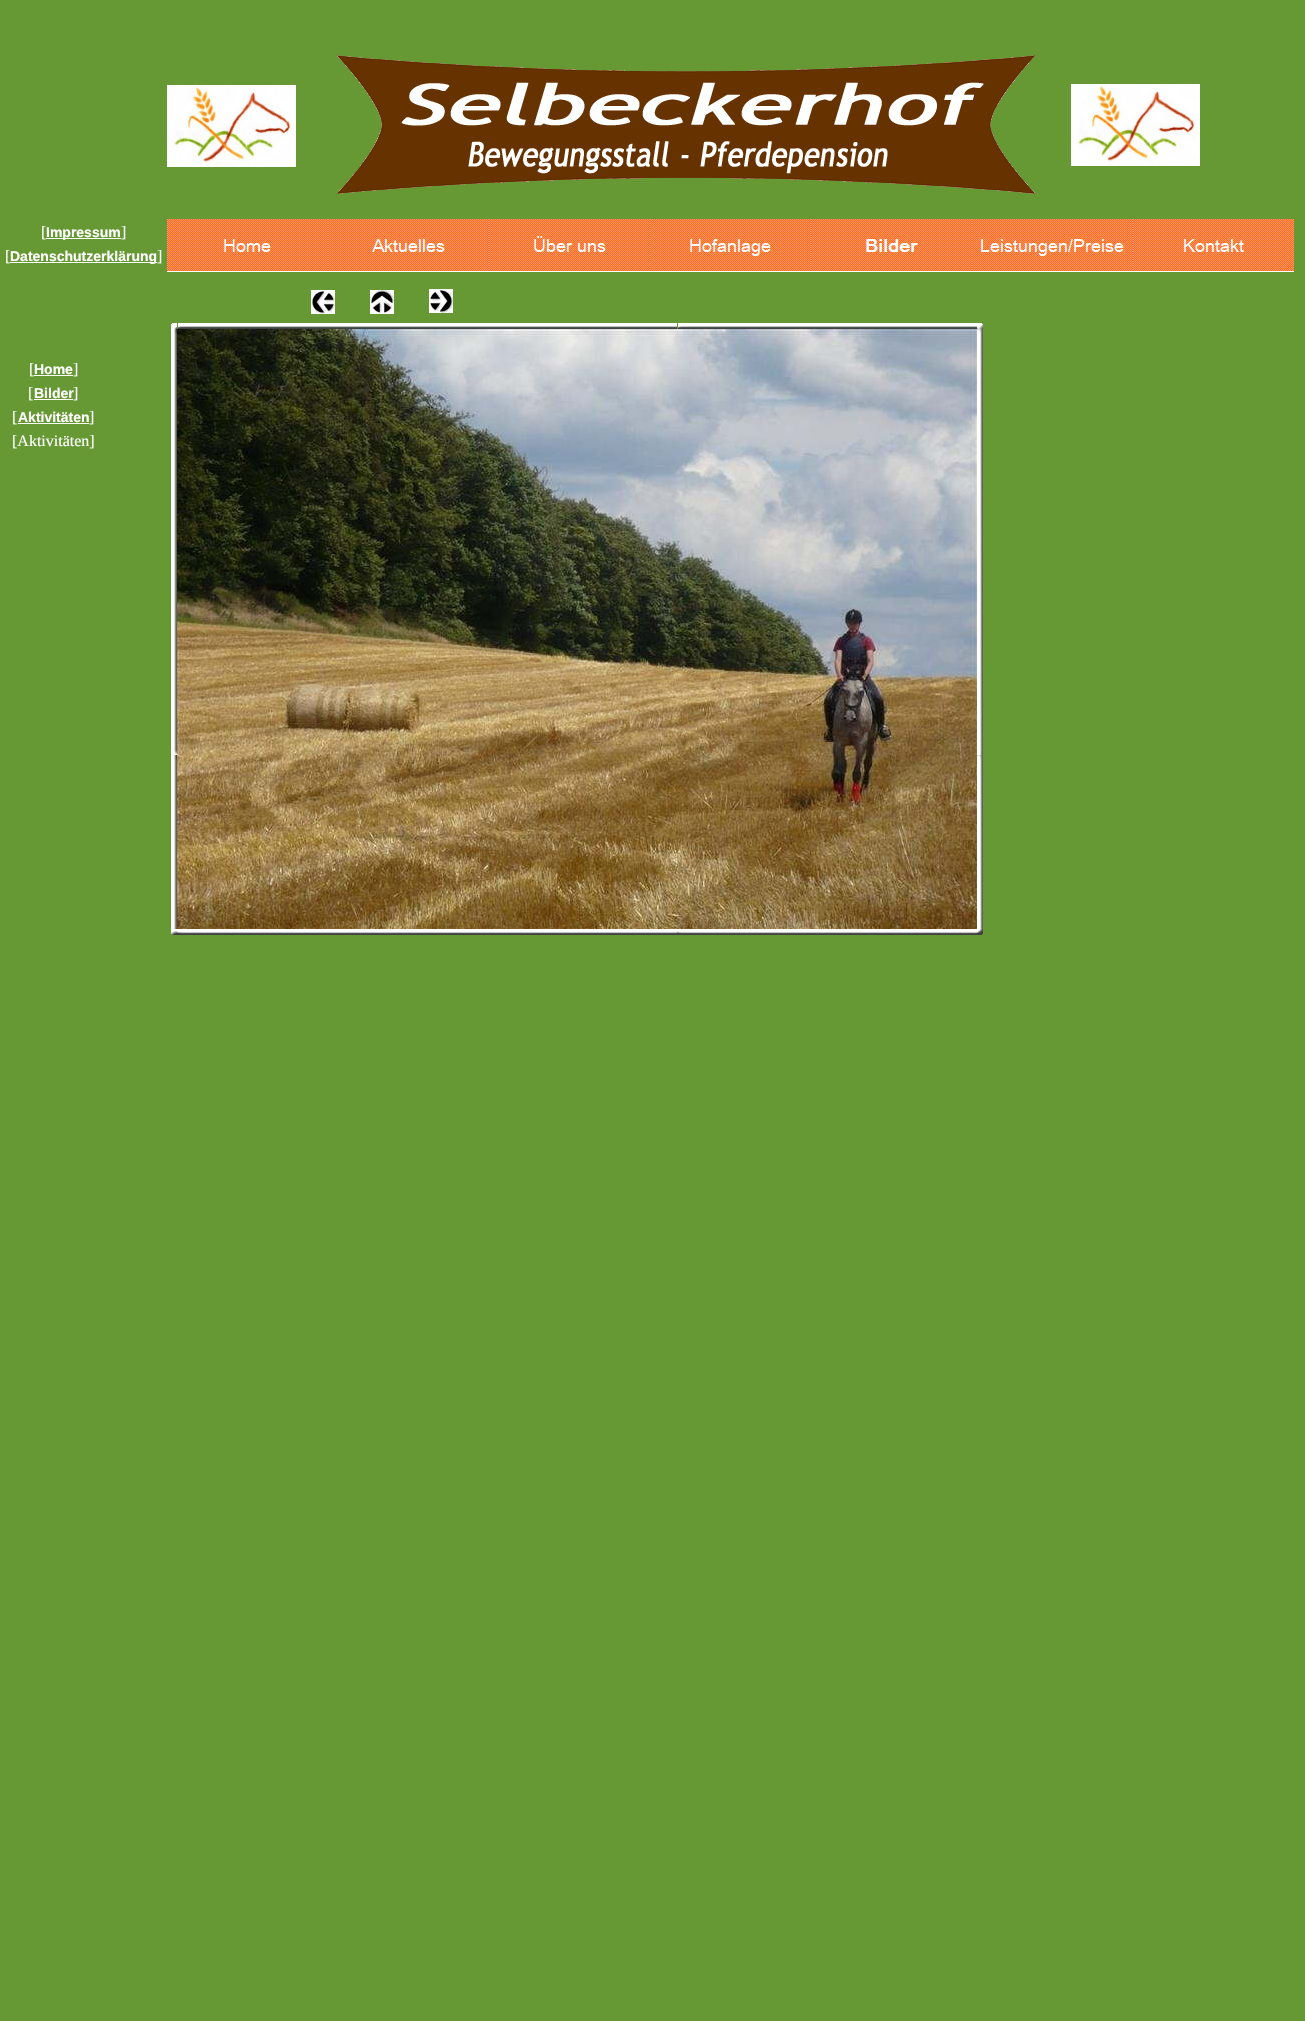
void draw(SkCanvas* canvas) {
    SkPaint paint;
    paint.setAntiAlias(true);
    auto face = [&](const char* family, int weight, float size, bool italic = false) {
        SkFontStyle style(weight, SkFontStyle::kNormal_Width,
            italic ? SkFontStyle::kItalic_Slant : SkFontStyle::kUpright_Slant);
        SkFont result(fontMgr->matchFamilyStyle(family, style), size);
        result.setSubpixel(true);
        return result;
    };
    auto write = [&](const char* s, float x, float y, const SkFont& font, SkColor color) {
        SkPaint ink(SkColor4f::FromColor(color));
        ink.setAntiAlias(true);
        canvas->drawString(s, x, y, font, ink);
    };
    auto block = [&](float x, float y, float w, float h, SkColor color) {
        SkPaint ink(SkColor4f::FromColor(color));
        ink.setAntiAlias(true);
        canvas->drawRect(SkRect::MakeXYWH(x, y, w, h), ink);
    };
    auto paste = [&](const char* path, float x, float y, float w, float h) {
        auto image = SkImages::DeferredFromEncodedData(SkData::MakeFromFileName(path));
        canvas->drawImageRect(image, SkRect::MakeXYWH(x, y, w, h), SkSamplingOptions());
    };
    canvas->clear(SkColorSetRGB(102, 153, 51));
    paste("pic1.png", 167, 85, 129, 82);
    paste("pic2.png", 337, 55, 698, 139);
    paste("pic3.png", 1071, 84, 129, 82);
    auto kFont1 = face("Liberation Serif", 400, 16);
    write("[", 41, 237, kFont1, SK_ColorWHITE);
    block(46, 238, 75, 1, SK_ColorWHITE);
    auto kFont2 = face("Liberation Sans", 700, 14);
    write("Impressum", 46, 237, kFont2, SK_ColorWHITE);
    write("]", 121, 237, kFont1, SK_ColorWHITE);
    write("[", 5, 261, kFont1, SK_ColorWHITE);
    block(10, 262, 147, 1, SK_ColorWHITE);
    write("Datenschutzerklärung", 10, 261, kFont2, SK_ColorWHITE);
    write("]", 157, 261, kFont1, SK_ColorWHITE);
    paste("pic4.png", 167, 219, 161, 53);
    paste("pic5.png", 328, 219, 161, 53);
    paste("pic6.png", 489, 219, 161, 53);
    paste("pic7.png", 650, 219, 161, 53);
    paste("pic8.png", 811, 219, 161, 53);
    paste("pic9.png", 972, 219, 161, 53);
    paste("pic10.png", 1133, 219, 161, 53);
    paste("pic11.png", 311, 290, 24, 24);
    paste("pic12.png", 370, 290, 24, 24);
    paste("pic13.png", 429, 289, 24, 24);
    write("[", 29, 374, kFont1, SK_ColorWHITE);
    write("Home", 34, 374, kFont2, SK_ColorWHITE);
    block(34, 375, 39, 1, SK_ColorWHITE);
    write("]", 73, 374, kFont1, SK_ColorWHITE);
    write("[", 28, 398, kFont1, SK_ColorWHITE);
    write("Bilder", 34, 398, kFont2, SK_ColorWHITE);
    block(34, 399, 39, 1, SK_ColorWHITE);
    write("]", 73, 398, kFont1, SK_ColorWHITE);
    write("[", 12, 422, kFont1, SK_ColorWHITE);
    write("Aktivitäten", 18, 422, kFont2, SK_ColorWHITE);
    block(18, 423, 71, 1, SK_ColorWHITE);
    write("]", 89, 422, kFont1, SK_ColorWHITE);
    write("[Aktivitäten]", 12, 446, kFont1, SK_ColorWHITE);
    paste("pic14.png", 171, 323, 6, 6);
    paste("pic15.png", 178, 323, 799, 6);
    paste("pic16.png", 977, 323, 6, 6);
    paste("pic17.png", 171, 329, 6, 600);
    paste("pic18.png", 177, 329, 800, 600);
    paste("pic19.png", 977, 329, 6, 600);
    paste("pic20.png", 171, 929, 6, 6);
    paste("pic21.png", 177, 929, 800, 6);
    paste("pic22.png", 977, 929, 6, 6);
}
